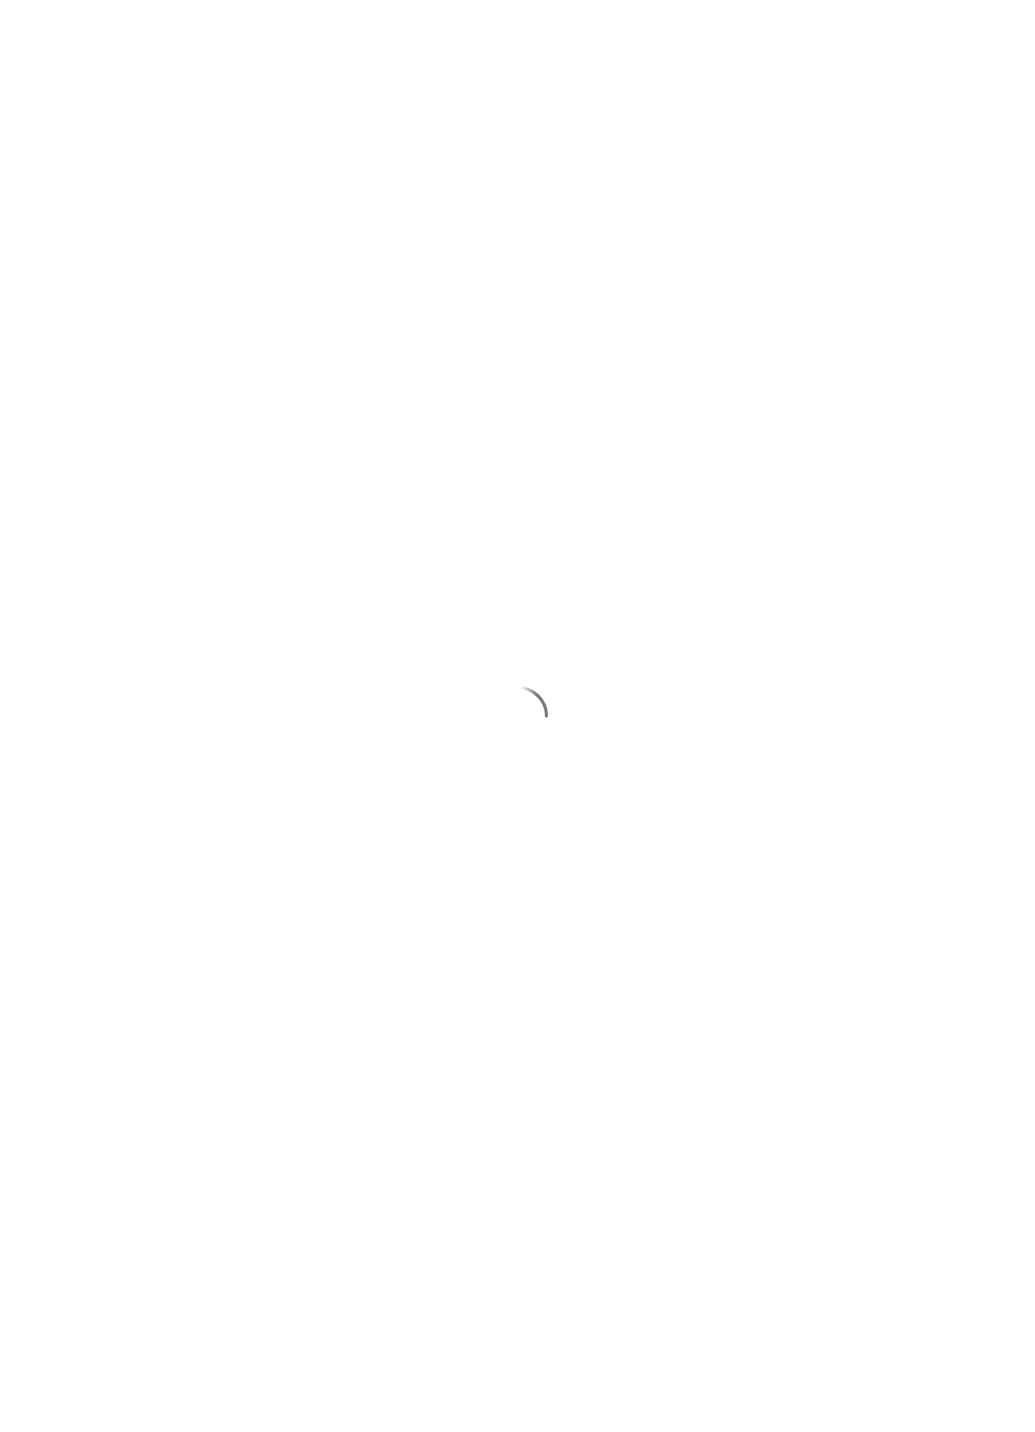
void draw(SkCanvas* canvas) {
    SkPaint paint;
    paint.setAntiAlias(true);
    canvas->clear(SK_ColorWHITE);
    paint.setStyle(SkPaint::kStroke_Style);
    paint.setStrokeWidth(3.2f);
    {
        const SkColor colors[] = {SK_ColorWHITE, SkColorSetRGB(169, 169, 169), SkColorSetRGB(119, 119, 119)};
        const float stops[] = {0, 0.63f, 1};
        const SkPoint ends[] = {{520, 688}, {537, 694}};
        paint.setShader(SkGradientShader::MakeLinear(ends, colors, stops, 3, SkTileMode::kClamp));
        paint.setAlpha(255);
    }
    canvas->drawPath(SkPathBuilder().moveTo(546.5f, 716).cubicTo(546.5f, 700.5f, 533.5f, 687.5f, 518, 687.5f).detach(), paint);
    paint.setStyle(SkPaint::kFill_Style);
    paint.setShader(nullptr);
    paint.setColor(SkColorSetRGB(119, 119, 119));
    canvas->drawCircle(546.4f, 716, 1.6f, paint);
}
